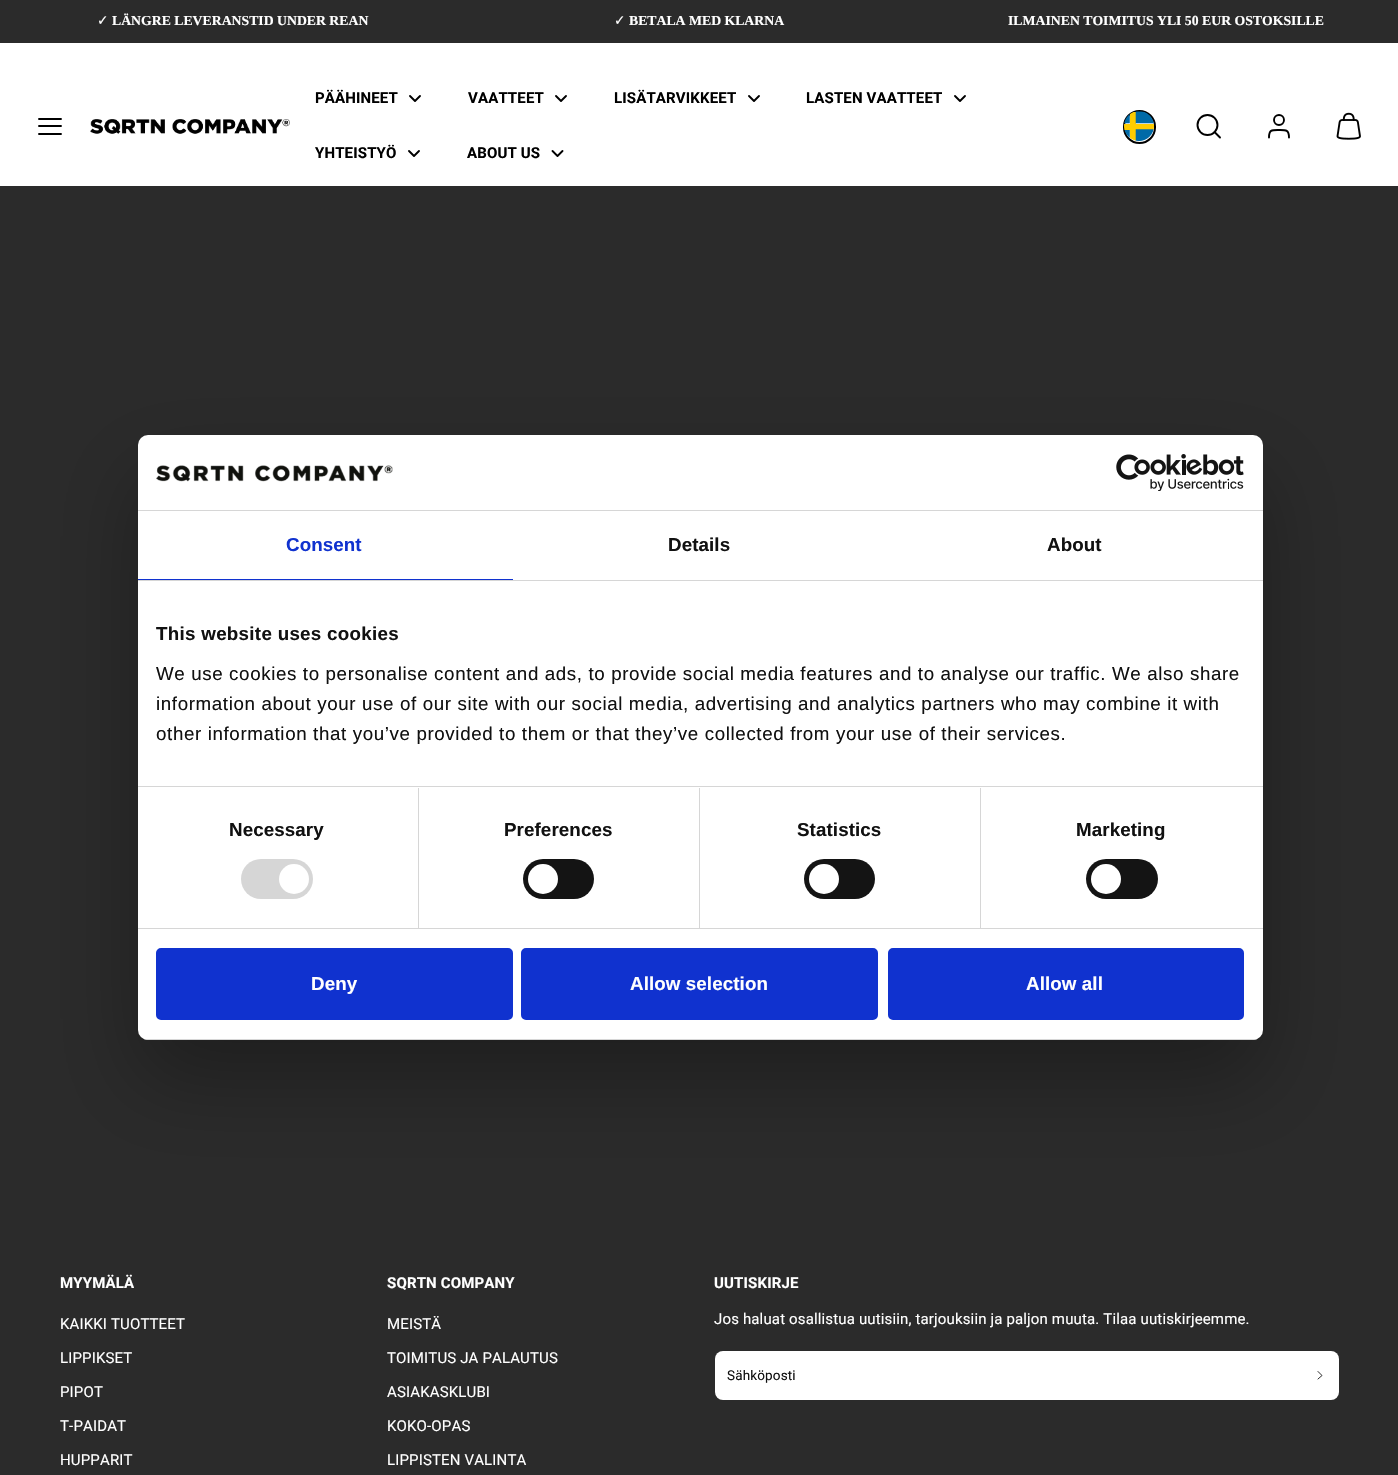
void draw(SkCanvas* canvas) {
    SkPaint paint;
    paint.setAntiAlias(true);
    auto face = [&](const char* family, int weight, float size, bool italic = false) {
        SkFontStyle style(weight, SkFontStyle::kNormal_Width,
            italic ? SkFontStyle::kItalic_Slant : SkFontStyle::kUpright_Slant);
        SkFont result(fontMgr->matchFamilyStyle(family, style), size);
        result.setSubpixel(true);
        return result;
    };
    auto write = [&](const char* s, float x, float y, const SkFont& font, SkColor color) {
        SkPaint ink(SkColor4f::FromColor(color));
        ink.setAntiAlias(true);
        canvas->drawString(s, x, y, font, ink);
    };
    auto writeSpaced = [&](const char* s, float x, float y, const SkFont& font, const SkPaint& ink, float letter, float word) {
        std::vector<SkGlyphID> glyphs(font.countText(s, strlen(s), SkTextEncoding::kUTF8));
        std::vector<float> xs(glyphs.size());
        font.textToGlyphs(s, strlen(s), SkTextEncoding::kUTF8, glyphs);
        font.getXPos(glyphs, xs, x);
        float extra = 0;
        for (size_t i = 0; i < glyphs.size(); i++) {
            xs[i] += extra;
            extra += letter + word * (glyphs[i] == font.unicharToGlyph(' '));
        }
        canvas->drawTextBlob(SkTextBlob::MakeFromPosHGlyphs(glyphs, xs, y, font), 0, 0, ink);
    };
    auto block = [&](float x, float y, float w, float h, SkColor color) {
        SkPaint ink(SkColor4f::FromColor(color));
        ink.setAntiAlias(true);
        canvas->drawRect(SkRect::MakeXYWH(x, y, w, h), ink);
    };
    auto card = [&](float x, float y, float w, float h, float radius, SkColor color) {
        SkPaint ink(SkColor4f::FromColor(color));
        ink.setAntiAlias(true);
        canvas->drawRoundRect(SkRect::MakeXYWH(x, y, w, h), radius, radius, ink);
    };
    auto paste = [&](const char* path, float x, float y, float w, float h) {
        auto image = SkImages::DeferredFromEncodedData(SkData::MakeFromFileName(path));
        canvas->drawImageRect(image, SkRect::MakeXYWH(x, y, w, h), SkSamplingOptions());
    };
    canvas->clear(SkColorSetRGB(43, 43, 43));
    auto kFont1 = face("DejaVu Sans", 400, 13.75f);
    write("✓", 97, 25, kFont1, SK_ColorWHITE);
    auto kFont2 = face("Liberation Serif", 700, 13.75f);
    write("LÄNGRE LEVERANSTID UNDER REAN", 112, 25, kFont2, SK_ColorWHITE);
    write("✓", 614, 25, kFont1, SK_ColorWHITE);
    write("BETALA MED KLARNA", 629, 25, kFont2, SK_ColorWHITE);
    write("ILMAINEN TOIMITUS YLI 50 EUR OSTOKSILLE", 1008, 25, kFont2, SK_ColorWHITE);
    block(0, 43, 1398, 143, SK_ColorWHITE);
    paint.setStyle(SkPaint::kStroke_Style);
    paint.setStrokeWidth(1.9f);
    paint.setStrokeCap(SkPaint::kRound_Cap);
    paint.setStrokeJoin(SkPaint::kRound_Join);
    paint.setColor(SK_ColorBLACK);
    canvas->drawPath(SkPathBuilder().moveTo(39, 126).lineTo(61, 126).moveTo(39, 119).lineTo(61, 119).moveTo(39, 134).lineTo(61, 134).detach(), paint);
    paste("pic1.png", 90, 119, 200, 15);
    auto kFont3 = face("Roboto", 700, 15);
    paint.setStyle(SkPaint::kFill_Style);
    writeSpaced("PÄÄHINEET", 315, 103, kFont3, paint, 0.15f, 0);
    paint.setStyle(SkPaint::kStroke_Style);
    canvas->drawPath(SkPathBuilder().moveTo(410, 96).lineTo(415, 101).lineTo(420, 96).detach(), paint);
    paint.setStyle(SkPaint::kFill_Style);
    writeSpaced("VAATTEET", 468, 103, kFont3, paint, 0.15f, 0);
    paint.setStyle(SkPaint::kStroke_Style);
    canvas->drawPath(SkPathBuilder().moveTo(556, 96).lineTo(561, 101).lineTo(566, 96).detach(), paint);
    paint.setStyle(SkPaint::kFill_Style);
    writeSpaced("LISÄTARVIKKEET", 614, 103, kFont3, paint, 0.15f, 0);
    paint.setStyle(SkPaint::kStroke_Style);
    canvas->drawPath(SkPathBuilder().moveTo(749, 96).lineTo(754, 101).lineTo(759, 96).detach(), paint);
    paint.setStyle(SkPaint::kFill_Style);
    writeSpaced("LASTEN VAATTEET", 806, 103, kFont3, paint, 0.15f, 0);
    paint.setStyle(SkPaint::kStroke_Style);
    canvas->drawPath(SkPathBuilder().moveTo(955, 96).lineTo(960, 101).lineTo(965, 96).detach(), paint);
    paint.setStyle(SkPaint::kFill_Style);
    writeSpaced("YHTEISTYÖ", 315, 158, kFont3, paint, 0.15f, 0);
    paint.setStyle(SkPaint::kStroke_Style);
    canvas->drawPath(SkPathBuilder().moveTo(409, 151).lineTo(414, 156).lineTo(419, 151).detach(), paint);
    paint.setStyle(SkPaint::kFill_Style);
    writeSpaced("ABOUT US", 467, 158, kFont3, paint, 0.15f, 0);
    paint.setStyle(SkPaint::kStroke_Style);
    canvas->drawPath(SkPathBuilder().moveTo(552.5f, 151).lineTo(557.5f, 156).lineTo(562.5f, 151).detach(), paint);
    paint.setStrokeWidth(2);
    paint.setStrokeCap(SkPaint::kButt_Cap);
    paint.setStrokeJoin(SkPaint::kMiter_Join);
    canvas->drawRoundRect(SkRect::MakeXYWH(1124, 111, 31, 32), 15.5f, 15.5f, paint);
    paste("pic2.png", 1124, 111, 30, 30);
    paint.setStrokeWidth(1.9f);
    canvas->drawCircle(1207.5f, 125, 10, paint);
    paint.setStrokeCap(SkPaint::kRound_Cap);
    paint.setStrokeJoin(SkPaint::kRound_Join);
    canvas->drawPath(SkPathBuilder().moveTo(1220, 137.5f).lineTo(1214.5f, 132).detach(), paint);
    canvas->drawPath(SkPathBuilder().moveTo(1289, 137.5f).cubicTo(1289, 129.5f, 1285.5f, 130, 1279, 130).cubicTo(1272, 130, 1269, 129.5f, 1269, 137.5f).detach(), paint);
    paint.setStrokeCap(SkPaint::kButt_Cap);
    paint.setStrokeJoin(SkPaint::kMiter_Join);
    canvas->drawCircle(1279, 120, 5, paint);
    paste("pic3.png", 1336, 112, 25, 28);
    paint.setStyle(SkPaint::kFill_Style);
    paint.setColor(SkColorSetARGB(77, 0, 0, 0));
    paint.setMaskFilter(SkMaskFilter::MakeBlur(kNormal_SkBlurStyle, 42.5f));
    canvas->drawRoundRect(SkRect::MakeXYWH(138, 475, 1125, 605), 10, 10, paint);
    paint.setMaskFilter(nullptr);
    card(138, 435, 1125, 605, 10, SK_ColorWHITE);
    block(138, 510, 1125, 1, SkColorSetRGB(214, 214, 214));
    paste("pic4.png", 156, 465, 237, 17);
    paste("pic5.png", 1116, 454, 128, 37);
    block(138, 580, 1125, 1, SkColorSetRGB(214, 214, 214));
    block(138, 579, 375, 1, SkColorSetRGB(16, 50, 207));
    auto kFont4 = face("Liberation Sans", 700, 18.75f);
    paint.setColor(SkColorSetRGB(16, 50, 207));
    writeSpaced("Consent", 286, 551, kFont4, paint, 0.1f, 0);
    paint.setColor(SkColorSetRGB(17, 17, 17));
    writeSpaced("Details", 668, 551, kFont4, paint, 0.1f, 0);
    writeSpaced("About", 1047, 551, kFont4, paint, 0.1f, 0);
    block(138, 786, 1125, 1, SkColorSetRGB(214, 214, 214));
    writeSpaced("This website uses cookies", 156, 640, kFont4, paint, 0.3f, 0);
    auto kFont5 = face("Liberation Sans", 400, 18.75f);
    writeSpaced("We use cookies to personalise content and ads, to provide social media features and to analyse our traffic. We also share", 156, 680, kFont5, paint, 0.62f, 0);
    writeSpaced("information about your use of our site with our social media, advertising and analytics partners who may combine it with", 156, 710, kFont5, paint, 0.62f, 0);
    writeSpaced("other information that you’ve provided to them or that they’ve collected from your use of their services.", 156, 740, kFont5, paint, 0.62f, 0);
    block(138, 928, 1125, 1, SkColorSetRGB(214, 214, 214));
    block(418, 788, 1, 140, SkColorSetRGB(214, 214, 214));
    writeSpaced("Necessary", 229, 836, kFont4, paint, 0.1f, 0);
    card(241, 859, 72, 40, 20, SkColorSetRGB(214, 214, 214));
    paint.setColor(SK_ColorWHITE);
    canvas->drawCircle(294, 879, 15, paint);
    block(699, 788, 1, 140, SkColorSetRGB(214, 214, 214));
    paint.setColor(SkColorSetRGB(17, 17, 17));
    writeSpaced("Preferences", 504, 836, kFont4, paint, 0.1f, 0);
    card(523, 859, 71, 40, 20, SkColorSetRGB(20, 20, 20));
    paint.setColor(SK_ColorWHITE);
    canvas->drawCircle(543, 879, 15, paint);
    block(980, 788, 1, 140, SkColorSetRGB(214, 214, 214));
    paint.setColor(SkColorSetRGB(17, 17, 17));
    writeSpaced("Statistics", 797, 836, kFont4, paint, 0.1f, 0);
    card(804, 859, 71, 40, 20, SkColorSetRGB(20, 20, 20));
    paint.setColor(SK_ColorWHITE);
    canvas->drawCircle(824, 879, 15, paint);
    paint.setColor(SkColorSetRGB(17, 17, 17));
    writeSpaced("Marketing", 1076, 836, kFont4, paint, 0.1f, 0);
    card(1086, 859, 72, 40, 20, SkColorSetRGB(20, 20, 20));
    paint.setColor(SK_ColorWHITE);
    canvas->drawCircle(1106, 879, 15, paint);
    canvas->save();
    canvas->clipPath(SkPathBuilder().moveTo(148, 435).lineTo(1253, 435).cubicTo(1258.5f, 435, 1263, 439.5f, 1263, 445).lineTo(1263, 1030).cubicTo(1263, 1035.5f, 1258.5f, 1040, 1253, 1040).lineTo(148, 1040).cubicTo(142.5f, 1040, 138, 1035.5f, 138, 1030).lineTo(138, 445).cubicTo(138, 439.5f, 142.5f, 435, 148, 435).close().detach(), true);
    block(138, 1039, 1125, 1, SkColorSetRGB(214, 214, 214));
    canvas->restore();
    paint.setColor(SkColorSetRGB(16, 50, 207));
    canvas->drawRoundRect(SkRect::MakeXYWH(157.5f, 949.5f, 354, 69), 3.5f, 3.5f, paint);
    paint.setStyle(SkPaint::kStroke_Style);
    paint.setStrokeWidth(3);
    canvas->drawRoundRect(SkRect::MakeXYWH(157.5f, 949.5f, 354, 69), 3.5f, 3.5f, paint);
    paint.setStyle(SkPaint::kFill_Style);
    paint.setColor(SK_ColorWHITE);
    writeSpaced("Deny", 311, 990, kFont4, paint, 0.1f, 0);
    paint.setColor(SkColorSetRGB(16, 50, 207));
    canvas->drawRoundRect(SkRect::MakeXYWH(522.5f, 949.5f, 354, 69), 3.5f, 3.5f, paint);
    paint.setStyle(SkPaint::kStroke_Style);
    canvas->drawRoundRect(SkRect::MakeXYWH(522.5f, 949.5f, 354, 69), 3.5f, 3.5f, paint);
    paint.setStyle(SkPaint::kFill_Style);
    paint.setColor(SK_ColorWHITE);
    writeSpaced("Allow selection", 630, 990, kFont4, paint, 0.1f, 0);
    paint.setColor(SkColorSetRGB(16, 50, 207));
    canvas->drawRoundRect(SkRect::MakeXYWH(889.5f, 949.5f, 353, 69), 3.5f, 3.5f, paint);
    paint.setStyle(SkPaint::kStroke_Style);
    canvas->drawRoundRect(SkRect::MakeXYWH(889.5f, 949.5f, 353, 69), 3.5f, 3.5f, paint);
    paint.setStyle(SkPaint::kFill_Style);
    paint.setColor(SK_ColorWHITE);
    writeSpaced("Allow all", 1026, 990, kFont4, paint, 0.1f, 0);
    writeSpaced("MYYMÄLÄ", 60, 1288, kFont3, paint, 0.15f, 0);
    auto kFont6 = face("Roboto", 400, 15);
    writeSpaced("KAIKKI TUOTTEET", 60, 1329, kFont6, paint, 0.15f, 0);
    writeSpaced("LIPPIKSET", 60, 1363, kFont6, paint, 0.15f, 0);
    writeSpaced("PIPOT", 60, 1397, kFont6, paint, 0.15f, 0);
    writeSpaced("T-PAIDAT", 60, 1431, kFont6, paint, 0.15f, 0);
    writeSpaced("HUPPARIT", 60, 1465, kFont6, paint, 0.15f, 0);
    writeSpaced("SQRTN COMPANY", 387, 1288, kFont3, paint, 0.15f, 0);
    writeSpaced("MEISTÄ", 387, 1329, kFont6, paint, 0.15f, 0);
    writeSpaced("TOIMITUS JA PALAUTUS", 387, 1363, kFont6, paint, 0.15f, 0);
    writeSpaced("ASIAKASKLUBI", 387, 1397, kFont6, paint, 0.15f, 0);
    writeSpaced("KOKO-OPAS", 387, 1431, kFont6, paint, 0.15f, 0);
    writeSpaced("LIPPISTEN VALINTA", 387, 1465, kFont6, paint, 0.15f, 0);
    writeSpaced("UUTISKIRJE", 714, 1288, kFont3, paint, 0.15f, 0);
    writeSpaced("Jos haluat osallistua uutisiin, tarjouksiin ja paljon muuta. Tilaa uutiskirjeemme.", 714, 1324, kFont6, paint, 0.15f, 0);
    card(715, 1351, 624, 49, 8, SK_ColorWHITE);
    auto kFont7 = face("Roboto", 400, 13.5f);
    paint.setColor(SkColorSetRGB(17, 17, 17));
    writeSpaced("Sähköposti", 727, 1380, kFont7, paint, 0.15f, 0);
    paint.setStyle(SkPaint::kStroke_Style);
    paint.setStrokeWidth(0.9f);
    paint.setStrokeCap(SkPaint::kRound_Cap);
    paint.setStrokeJoin(SkPaint::kRound_Join);
    canvas->drawPath(SkPathBuilder().moveTo(1318, 1379).lineTo(1322, 1375.5f).lineTo(1318, 1371.5f).detach(), paint);
}
